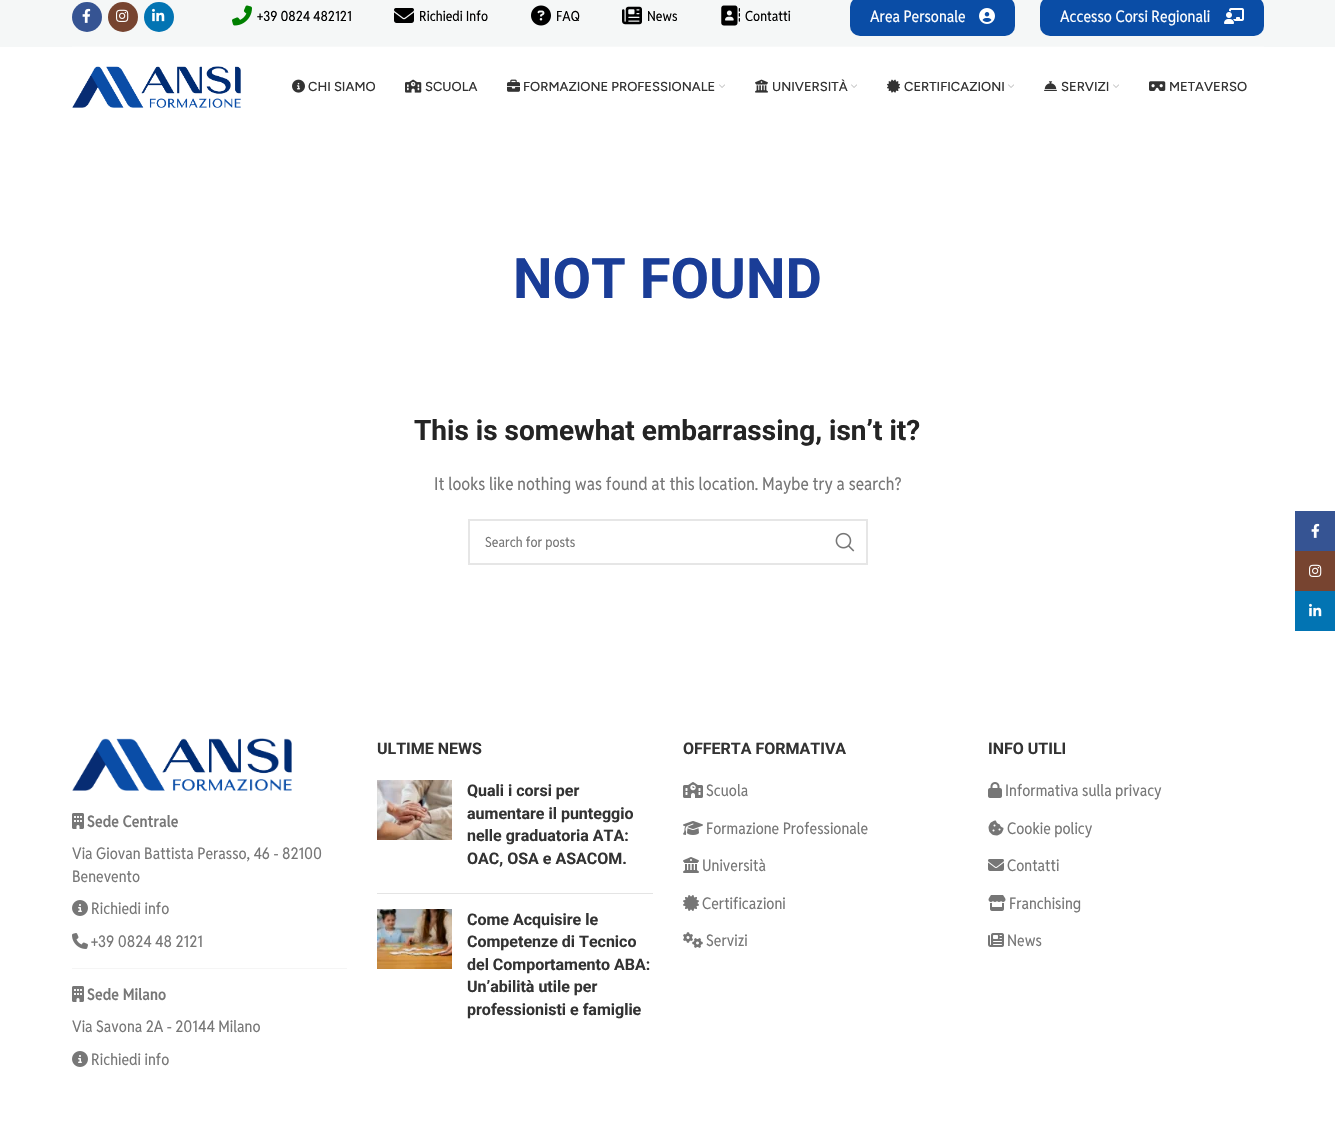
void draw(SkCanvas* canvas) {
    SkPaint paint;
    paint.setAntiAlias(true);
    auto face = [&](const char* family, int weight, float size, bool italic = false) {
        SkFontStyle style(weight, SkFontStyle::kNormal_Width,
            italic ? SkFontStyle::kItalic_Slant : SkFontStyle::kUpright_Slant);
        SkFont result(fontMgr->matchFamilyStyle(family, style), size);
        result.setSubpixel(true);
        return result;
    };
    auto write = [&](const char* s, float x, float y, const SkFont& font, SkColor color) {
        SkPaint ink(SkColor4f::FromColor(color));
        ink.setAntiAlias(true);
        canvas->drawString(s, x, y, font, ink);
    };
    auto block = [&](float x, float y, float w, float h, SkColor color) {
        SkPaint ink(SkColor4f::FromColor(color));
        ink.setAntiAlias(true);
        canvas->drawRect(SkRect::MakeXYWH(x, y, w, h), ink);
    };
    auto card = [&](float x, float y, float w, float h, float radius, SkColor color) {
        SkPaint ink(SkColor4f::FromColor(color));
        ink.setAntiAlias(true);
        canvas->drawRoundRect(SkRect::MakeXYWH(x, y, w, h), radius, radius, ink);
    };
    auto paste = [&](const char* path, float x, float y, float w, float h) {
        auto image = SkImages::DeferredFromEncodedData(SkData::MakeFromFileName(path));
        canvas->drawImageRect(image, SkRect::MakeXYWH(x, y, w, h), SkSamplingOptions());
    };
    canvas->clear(SK_ColorWHITE);
    block(0, 0, 1335, 47, SkColorSetRGB(245, 247, 247));
    block(72, 46, 1192, 1, SkColorSetRGB(248, 249, 249));
    paint.setColor(SkColorSetRGB(54, 84, 147));
    canvas->drawCircle(87, 17, 15, paint);
    paste("pic1.png", 82, 8, 9, 15);
    paint.setColor(SkColorSetRGB(119, 68, 48));
    canvas->drawCircle(123, 17, 15, paint);
    paste("pic2.png", 116, 9, 13, 13);
    paint.setColor(SkColorSetRGB(2, 116, 179));
    canvas->drawCircle(159, 17, 15, paint);
    paste("pic3.png", 152, 8, 13, 14);
    paste("pic4.png", 232, 5, 20, 21);
    auto kFont1 = face("Reddit Sans Condensed", 400, 14);
    write("+39 0824 482121", 257, 21, kFont1, SK_ColorBLACK);
    paste("pic5.png", 394, 8, 20, 15);
    write("Richiedi Info", 419, 21, kFont1, SK_ColorBLACK);
    paste("pic6.png", 531, 5, 20, 21);
    write("FAQ", 556, 21, kFont1, SK_ColorBLACK);
    paste("pic7.png", 622, 6, 20, 19);
    write("News", 647, 21, kFont1, SK_ColorBLACK);
    paste("pic8.png", 721, 5, 19, 21);
    write("Contatti", 745, 21, kFont1, SK_ColorBLACK);
    card(850, -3, 165, 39, 10, SkColorSetRGB(10, 77, 166));
    auto kFont2 = face("Reddit Sans Condensed", 400, 16);
    write("Area Personale", 870, 22, kFont2, SK_ColorWHITE);
    paste("pic9.png", 979, 8, 16, 16);
    card(1040, -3, 224, 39, 10, SkColorSetRGB(10, 77, 166));
    write("Accesso Corsi Regionali", 1060, 22, kFont2, SK_ColorWHITE);
    paste("pic10.png", 1224, 8, 20, 16);
    paste("pic11.png", 72, 66, 169, 42);
    paste("pic12.png", 292, 79, 13, 14);
    auto kFont3 = face("Figtree", 500, 13);
    write("CHI SIAMO", 308, 91, kFont3, SkColorSetRGB(51, 51, 51));
    paste("pic13.png", 405, 79, 17, 14);
    write("SCUOLA", 425, 91, kFont3, SkColorSetRGB(51, 51, 51));
    paste("pic14.png", 507, 79, 13, 13);
    write("FORMAZIONE PROFESSIONALE", 523, 91, kFont3, SkColorSetRGB(51, 51, 51));
    paste("pic15.png", 719, 84, 6, 4);
    paste("pic16.png", 755, 79, 13, 14);
    write("UNIVERSITÀ", 772, 91, kFont3, SkColorSetRGB(51, 51, 51));
    paste("pic15.png", 851, 84, 6, 4);
    paste("pic17.png", 887, 79, 13, 14);
    write("CERTIFICAZIONI", 904, 91, kFont3, SkColorSetRGB(51, 51, 51));
    paste("pic15.png", 1008, 84, 6, 4);
    paste("pic18.png", 1044, 81, 13, 10);
    write("SERVIZI", 1061, 91, kFont3, SkColorSetRGB(51, 51, 51));
    paste("pic15.png", 1113, 84, 6, 4);
    paste("pic19.png", 1149, 81, 17, 10);
    write("METAVERSO", 1169, 91, kFont3, SkColorSetRGB(51, 51, 51));
    auto kFont4 = face("Roboto", 700, 56);
    write("NOT FOUND", 513, 298, kFont4, SkColorSetRGB(26, 61, 151));
    auto kFont5 = face("Roboto", 700, 28);
    write("This is somewhat embarrassing, isn’t it?", 414, 440, kFont5, SkColorSetRGB(36, 36, 36));
    auto kFont6 = face("Reddit Sans Condensed", 400, 17.6f);
    write("It looks like nothing was found at this location. Maybe try a search?", 434, 490, kFont6, SkColorSetRGB(119, 119, 119));
    paint.setStyle(SkPaint::kStroke_Style);
    paint.setStrokeWidth(2);
    paint.setColor(SkColorSetRGB(230, 230, 230));
    canvas->drawRect(SkRect::MakeXYWH(469, 520, 398, 44), paint);
    write("Search for posts", 485, 547, kFont1, SkColorSetRGB(119, 119, 119));
    paste("pic20.png", 835, 532, 20, 20);
    paste("pic21.png", 72, 738, 220, 53);
    paste("pic22.png", 72, 813, 12, 16);
    auto kFont7 = face("Reddit Sans Condensed", 600, 16);
    write("Sede Centrale", 87, 827, kFont7, SkColorSetRGB(119, 119, 119));
    write("Via Giovan Battista Perasso, 46 - 82100", 72, 859, kFont2, SkColorSetRGB(119, 119, 119));
    write("Benevento", 72, 882, kFont2, SkColorSetRGB(119, 119, 119));
    paste("pic23.png", 72, 900, 16, 16);
    write("Richiedi info", 91, 914, kFont2, SkColorSetRGB(119, 119, 119));
    paste("pic24.png", 72, 933, 16, 16);
    write("+39 0824 48 2121", 91, 947, kFont2, SkColorSetRGB(119, 119, 119));
    block(72, 968, 275, 1, SkColorSetRGB(245, 245, 245));
    paste("pic22.png", 72, 986, 12, 16);
    write("Sede Milano", 87, 1000, kFont7, SkColorSetRGB(119, 119, 119));
    write("Via Savona 2A - 20144 Milano", 72, 1032, kFont2, SkColorSetRGB(119, 119, 119));
    paste("pic23.png", 72, 1051, 16, 16);
    write("Richiedi info", 91, 1065, kFont2, SkColorSetRGB(119, 119, 119));
    auto kFont8 = face("Roboto", 700, 16);
    write("ULTIME NEWS", 377, 754, kFont8, SkColorSetRGB(51, 51, 51));
    block(377, 893, 276, 1, SkColorSetRGB(228, 228, 228));
    paste("pic25.png", 377, 780, 75, 60);
    write("Quali i corsi per", 467, 796, kFont8, SkColorSetRGB(51, 51, 51));
    write("aumentare il punteggio", 467, 819, kFont8, SkColorSetRGB(51, 51, 51));
    write("nelle graduatoria ATA:", 467, 841, kFont8, SkColorSetRGB(51, 51, 51));
    write("OAC, OSA e ASACOM.", 467, 864, kFont8, SkColorSetRGB(51, 51, 51));
    paste("pic26.png", 377, 909, 75, 60);
    write("Come Acquisire le", 467, 925, kFont8, SkColorSetRGB(51, 51, 51));
    write("Competenze di Tecnico", 467, 947, kFont8, SkColorSetRGB(51, 51, 51));
    write("del Comportamento ABA:", 467, 970, kFont8, SkColorSetRGB(51, 51, 51));
    write("Un’abilità utile per", 467, 992, kFont8, SkColorSetRGB(51, 51, 51));
    write("professionisti e famiglie", 467, 1015, kFont8, SkColorSetRGB(51, 51, 51));
    write("OFFERTA FORMATIVA", 683, 754, kFont8, SkColorSetRGB(51, 51, 51));
    paste("pic27.png", 683, 782, 20, 16);
    write("Scuola", 706, 796, kFont2, SkColorSetRGB(119, 119, 119));
    paste("pic28.png", 683, 821, 20, 14);
    write("Formazione Professionale", 706, 834, kFont2, SkColorSetRGB(119, 119, 119));
    paste("pic29.png", 683, 857, 16, 16);
    write("Università", 702, 871, kFont2, SkColorSetRGB(119, 119, 119));
    paste("pic30.png", 683, 895, 16, 16);
    write("Certificazioni", 702, 909, kFont2, SkColorSetRGB(119, 119, 119));
    paste("pic31.png", 683, 932, 20, 16);
    write("Servizi", 706, 946, kFont2, SkColorSetRGB(119, 119, 119));
    write("INFO UTILI", 988, 754, kFont8, SkColorSetRGB(51, 51, 51));
    paste("pic32.png", 988, 782, 14, 16);
    write("Informativa sulla privacy", 1005, 796, kFont2, SkColorSetRGB(119, 119, 119));
    paste("pic33.png", 988, 820, 16, 16);
    write("Cookie policy", 1007, 834, kFont2, SkColorSetRGB(119, 119, 119));
    paste("pic34.png", 988, 859, 16, 12);
    write("Contatti", 1007, 871, kFont2, SkColorSetRGB(119, 119, 119));
    paste("pic35.png", 988, 895, 18, 16);
    write("Franchising", 1009, 909, kFont2, SkColorSetRGB(119, 119, 119));
    paste("pic36.png", 988, 933, 16, 14);
    write("News", 1007, 946, kFont2, SkColorSetRGB(119, 119, 119));
    block(1295, 511, 40, 40, SkColorSetRGB(54, 84, 147));
    paste("pic1.png", 1311, 523, 9, 15);
    block(1295, 551, 40, 40, SkColorSetRGB(119, 68, 48));
    paste("pic2.png", 1309, 564, 13, 13);
    block(1295, 591, 40, 40, SkColorSetRGB(2, 116, 179));
    paste("pic3.png", 1309, 603, 13, 14);
}
